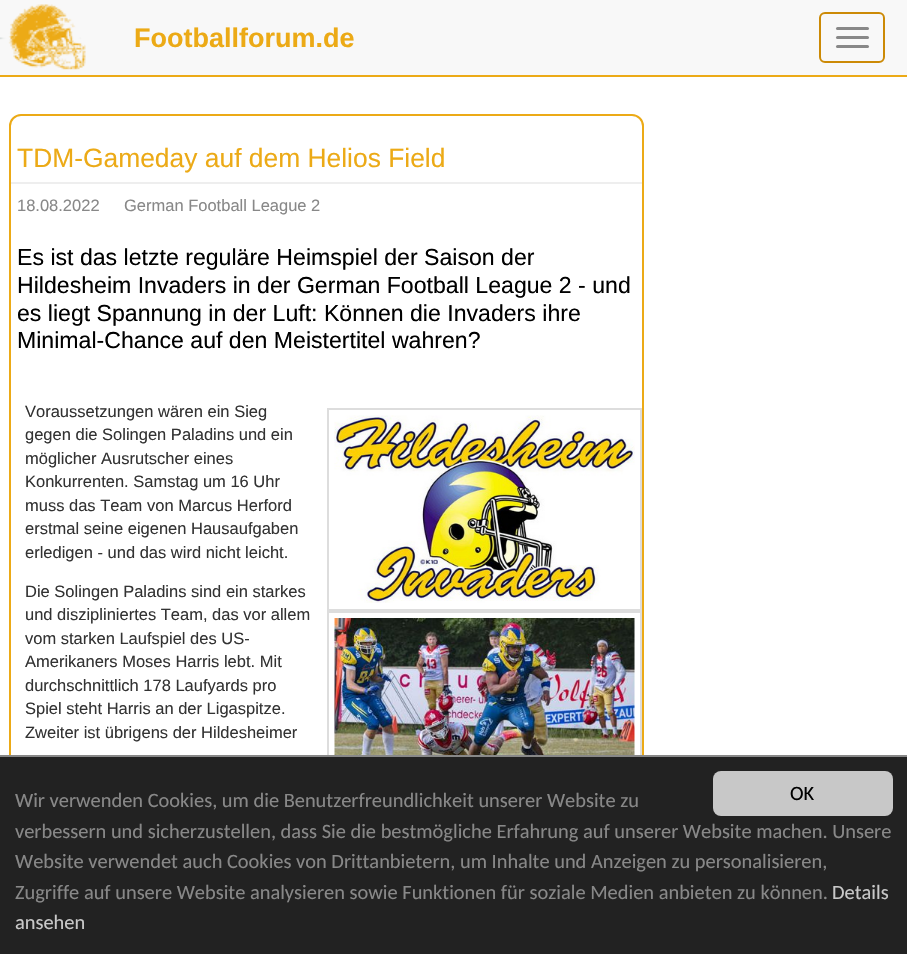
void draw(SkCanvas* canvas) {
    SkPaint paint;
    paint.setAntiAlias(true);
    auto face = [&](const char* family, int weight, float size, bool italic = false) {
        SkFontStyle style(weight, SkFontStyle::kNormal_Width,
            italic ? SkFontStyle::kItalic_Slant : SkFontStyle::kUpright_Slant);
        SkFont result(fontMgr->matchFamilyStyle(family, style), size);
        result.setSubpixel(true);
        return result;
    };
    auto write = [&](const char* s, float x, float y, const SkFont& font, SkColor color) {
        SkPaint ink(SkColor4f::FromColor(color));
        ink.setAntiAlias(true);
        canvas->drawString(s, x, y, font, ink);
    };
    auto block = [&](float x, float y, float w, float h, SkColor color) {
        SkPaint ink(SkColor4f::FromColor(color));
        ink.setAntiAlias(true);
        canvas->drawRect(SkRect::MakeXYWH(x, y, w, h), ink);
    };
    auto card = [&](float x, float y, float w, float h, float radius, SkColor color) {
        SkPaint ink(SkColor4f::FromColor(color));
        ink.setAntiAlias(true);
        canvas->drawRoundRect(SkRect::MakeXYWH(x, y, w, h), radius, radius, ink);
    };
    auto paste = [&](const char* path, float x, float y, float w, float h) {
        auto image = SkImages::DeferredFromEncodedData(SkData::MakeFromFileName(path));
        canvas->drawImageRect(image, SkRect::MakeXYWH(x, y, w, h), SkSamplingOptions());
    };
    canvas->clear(SK_ColorWHITE);
    block(0, 0, 907, 75, SkColorSetRGB(248, 248, 248));
    block(0, 75, 907, 2, SkColorSetRGB(236, 170, 22));
    paste("pic1.png", 0, 4, 86, 66);
    auto kFont1 = face("Liberation Sans", 700, 27);
    write("Footballforum.de", 134, 47, kFont1, SkColorSetRGB(236, 170, 22));
    paint.setStyle(SkPaint::kStroke_Style);
    paint.setStrokeWidth(2);
    paint.setColor(SkColorSetRGB(204, 138, 6));
    canvas->drawRoundRect(SkRect::MakeXYWH(820, 13, 64, 49), 5, 5, paint);
    card(836, 27, 33, 3, 1.5f, SkColorSetRGB(136, 136, 136));
    card(836, 36, 33, 3, 1.5f, SkColorSetRGB(136, 136, 136));
    card(836, 45, 33, 3, 1.5f, SkColorSetRGB(136, 136, 136));
    paint.setColor(SkColorSetRGB(236, 170, 22));
    canvas->drawRoundRect(SkRect::MakeXYWH(10, 115, 633, 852), 11, 11, paint);
    auto kFont2 = face("Liberation Sans", 400, 26.4f);
    write("TDM-Gameday auf dem Helios Field", 17, 167, kFont2, SkColorSetRGB(236, 170, 22));
    block(11, 182, 631, 2, SkColorSetRGB(238, 238, 238));
    auto kFont3 = face("Liberation Sans", 400, 16.5f);
    write("18.08.2022", 17, 211, kFont3, SkColorSetRGB(136, 136, 136));
    write("German Football League 2", 124, 211, kFont3, SkColorSetRGB(136, 136, 136));
    auto kFont4 = face("Liberation Sans", 400, 23.1f);
    write("Es ist das letzte reguläre Heimspiel der Saison der", 17, 265, kFont4, SK_ColorBLACK);
    write("Hildesheim Invaders in der German Football League 2 - und", 17, 293, kFont4, SK_ColorBLACK);
    write("es liegt Spannung in der Luft: Können die Invaders ihre", 17, 321, kFont4, SK_ColorBLACK);
    write("Minimal-Chance auf den Meistertitel wahren?", 17, 348, kFont4, SK_ColorBLACK);
    write("Voraussetzungen wären ein Sieg", 25, 417, kFont3, SkColorSetRGB(51, 51, 51));
    write("gegen die Solingen Paladins und ein", 25, 440, kFont3, SkColorSetRGB(51, 51, 51));
    write("möglicher Ausrutscher eines", 25, 464, kFont3, SkColorSetRGB(51, 51, 51));
    write("Konkurrenten. Samstag um 16 Uhr", 25, 487, kFont3, SkColorSetRGB(51, 51, 51));
    write("muss das Team von Marcus Herford", 25, 511, kFont3, SkColorSetRGB(51, 51, 51));
    write("erstmal seine eigenen Hausaufgaben", 25, 534, kFont3, SkColorSetRGB(51, 51, 51));
    write("erledigen - und das wird nicht leicht.", 25, 558, kFont3, SkColorSetRGB(51, 51, 51));
    write("Die Solingen Paladins sind ein starkes", 25, 597, kFont3, SkColorSetRGB(51, 51, 51));
    write("und diszipliniertes Team, das vor allem", 25, 620, kFont3, SkColorSetRGB(51, 51, 51));
    write("vom starken Laufspiel des US-", 25, 644, kFont3, SkColorSetRGB(51, 51, 51));
    write("Amerikaners Moses Harris lebt. Mit", 25, 667, kFont3, SkColorSetRGB(51, 51, 51));
    write("durchschnittlich 178 Laufyards pro", 25, 691, kFont3, SkColorSetRGB(51, 51, 51));
    write("Spiel steht Harris an der Ligaspitze.", 25, 714, kFont3, SkColorSetRGB(51, 51, 51));
    write("Zweiter ist übrigens der Hildesheimer", 25, 738, kFont3, SkColorSetRGB(51, 51, 51));
    paint.setColor(SkColorSetRGB(221, 221, 221));
    canvas->drawRect(SkRect::MakeXYWH(328, 409, 313, 201), paint);
    paste("pic2.png", 334, 415, 301, 188);
    canvas->drawRect(SkRect::MakeXYWH(328, 612, 313, 182), paint);
    paste("pic3.png", 334, 618, 301, 137);
    block(0, 757, 907, 197, SkColorSetRGB(34, 34, 34));
    block(0, 755, 907, 2, SkColorSetRGB(136, 136, 136));
    card(713, 771, 180, 45, 8, SkColorSetRGB(200, 200, 200));
    auto kFont5 = face("Carlito", 400, 20.4f);
    write("OK", 790, 800, kFont5, SK_ColorBLACK);
    write("Wir verwenden Cookies, um die Benutzerfreundlichkeit unserer Website zu", 15, 807, kFont5, SkColorSetRGB(136, 136, 136));
    write("verbessern und sicherzustellen, dass Sie die bestmögliche Erfahrung auf unserer Website machen. Unsere", 15, 838, kFont5, SkColorSetRGB(136, 136, 136));
    write("Website verwendet auch Cookies von Drittanbietern, um Inhalte und Anzeigen zu personalisieren,", 15, 868, kFont5, SkColorSetRGB(136, 136, 136));
    write("Zugriffe auf unsere Website analysieren sowie Funktionen für soziale Medien anbieten zu können.", 15, 899, kFont5, SkColorSetRGB(136, 136, 136));
    write("Details", 832, 899, kFont5, SkColorSetRGB(200, 200, 200));
    write("ansehen", 15, 929, kFont5, SkColorSetRGB(200, 200, 200));
}
